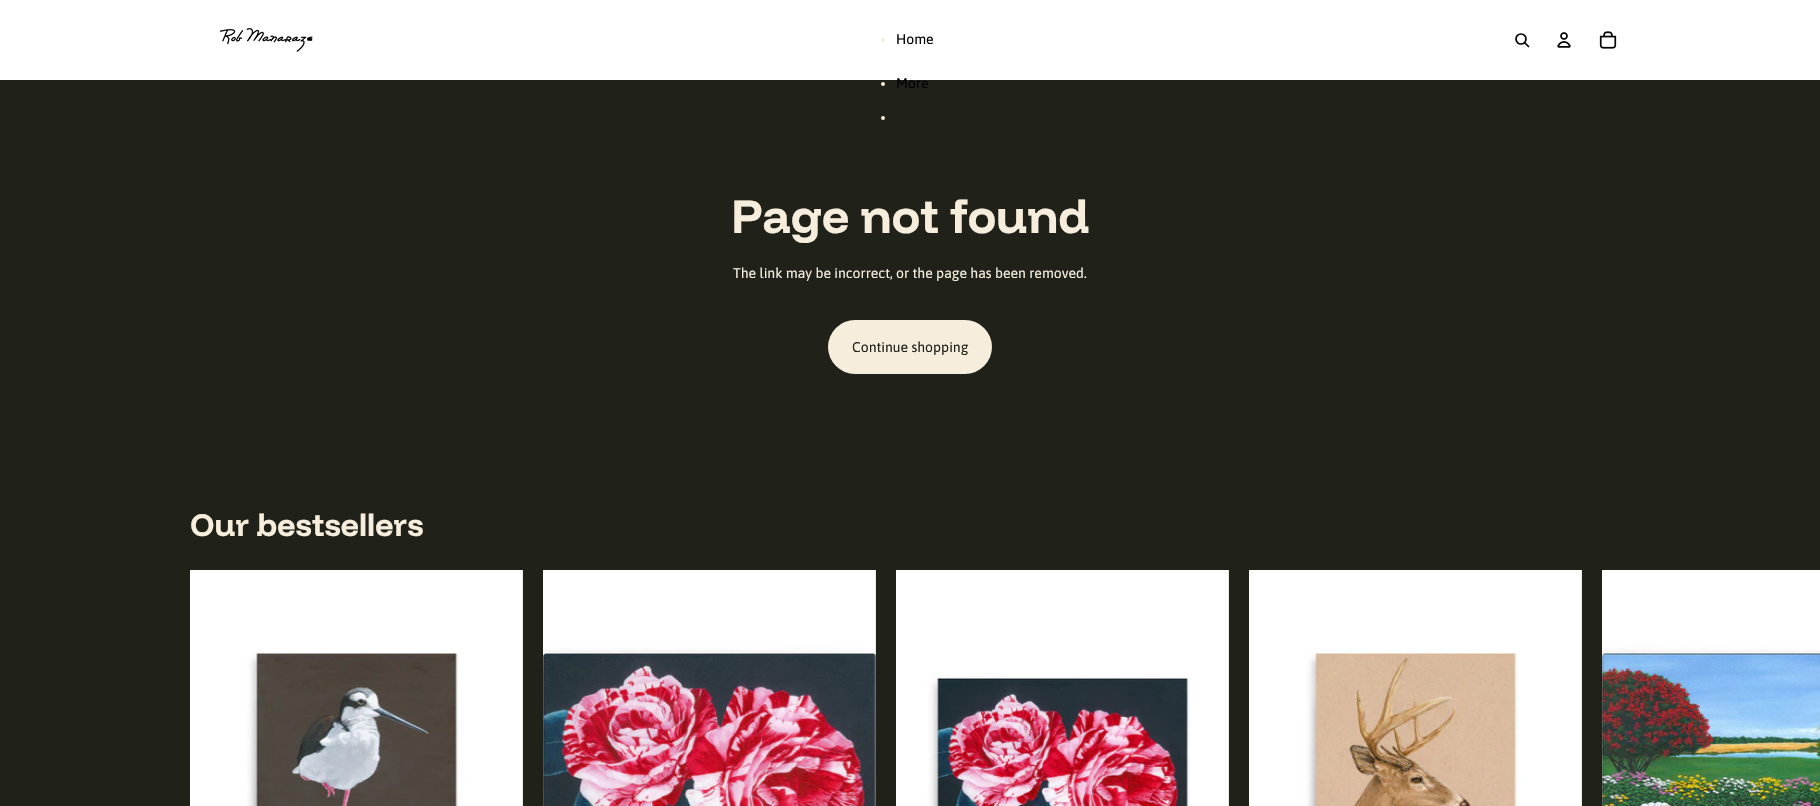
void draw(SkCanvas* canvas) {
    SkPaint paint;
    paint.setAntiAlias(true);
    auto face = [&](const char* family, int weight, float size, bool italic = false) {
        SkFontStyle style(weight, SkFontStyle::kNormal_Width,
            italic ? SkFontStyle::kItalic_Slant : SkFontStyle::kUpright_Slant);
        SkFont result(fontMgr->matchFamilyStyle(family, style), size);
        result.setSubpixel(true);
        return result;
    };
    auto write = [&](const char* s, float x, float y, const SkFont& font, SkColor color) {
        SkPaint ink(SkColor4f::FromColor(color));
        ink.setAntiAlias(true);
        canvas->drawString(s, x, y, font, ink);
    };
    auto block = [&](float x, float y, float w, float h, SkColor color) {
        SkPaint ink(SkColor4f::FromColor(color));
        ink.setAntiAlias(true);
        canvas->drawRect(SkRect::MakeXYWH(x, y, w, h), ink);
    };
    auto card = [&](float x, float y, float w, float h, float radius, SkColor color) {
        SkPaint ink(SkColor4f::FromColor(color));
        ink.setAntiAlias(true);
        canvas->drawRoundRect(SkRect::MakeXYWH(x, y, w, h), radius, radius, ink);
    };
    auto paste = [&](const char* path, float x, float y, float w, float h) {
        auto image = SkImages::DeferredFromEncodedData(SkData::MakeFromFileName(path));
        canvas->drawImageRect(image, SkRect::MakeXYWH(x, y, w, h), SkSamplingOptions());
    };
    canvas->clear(SkColorSetRGB(32, 34, 25));
    block(0, 0, 1820, 80, SK_ColorWHITE);
    paste("pic1.png", 219, 28, 94, 24);
    paint.setColor(SkColorSetRGB(246, 237, 221));
    canvas->drawCircle(883, 40, 2, paint);
    auto kFont1 = face("Asap", 400, 14);
    write("Home", 896, 44, kFont1, SK_ColorBLACK);
    canvas->drawCircle(883, 84, 2, paint);
    write("More", 896, 88, kFont1, SK_ColorBLACK);
    canvas->drawCircle(883, 118, 2, paint);
    paint.setStyle(SkPaint::kStroke_Style);
    paint.setStrokeWidth(1.7f);
    paint.setColor(SK_ColorBLACK);
    canvas->drawCircle(1521, 39, 5, paint);
    paint.setStrokeCap(SkPaint::kRound_Cap);
    paint.setStrokeJoin(SkPaint::kRound_Join);
    canvas->drawPath(SkPathBuilder().moveTo(1525, 43).lineTo(1528.5f, 46.5f).detach(), paint);
    paste("pic2.png", 1557, 32, 14, 16);
    paste("pic3.png", 1599, 31, 18, 18);
    auto kFont2 = face("Funnel Display", 700, 48);
    write("Page not found", 731, 233, kFont2, SkColorSetRGB(246, 237, 221));
    write("The link may be incorrect, or the page has been removed.", 733, 278, kFont1, SkColorSetRGB(246, 237, 221));
    card(828, 320, 164, 54, 27, SkColorSetRGB(246, 237, 221));
    write("Continue shopping", 852, 352, kFont1, SkColorSetRGB(32, 34, 25));
    auto kFont3 = face("Funnel Display", 700, 32);
    write("Our bestsellers", 190, 536, kFont3, SkColorSetRGB(246, 237, 221));
    paste("pic4.png", 190, 570, 333, 236);
    paste("pic5.png", 543, 570, 333, 236);
    paste("pic6.png", 896, 570, 333, 236);
    paste("pic7.png", 1249, 570, 333, 236);
    paste("pic8.png", 1602, 570, 218, 236);
}
